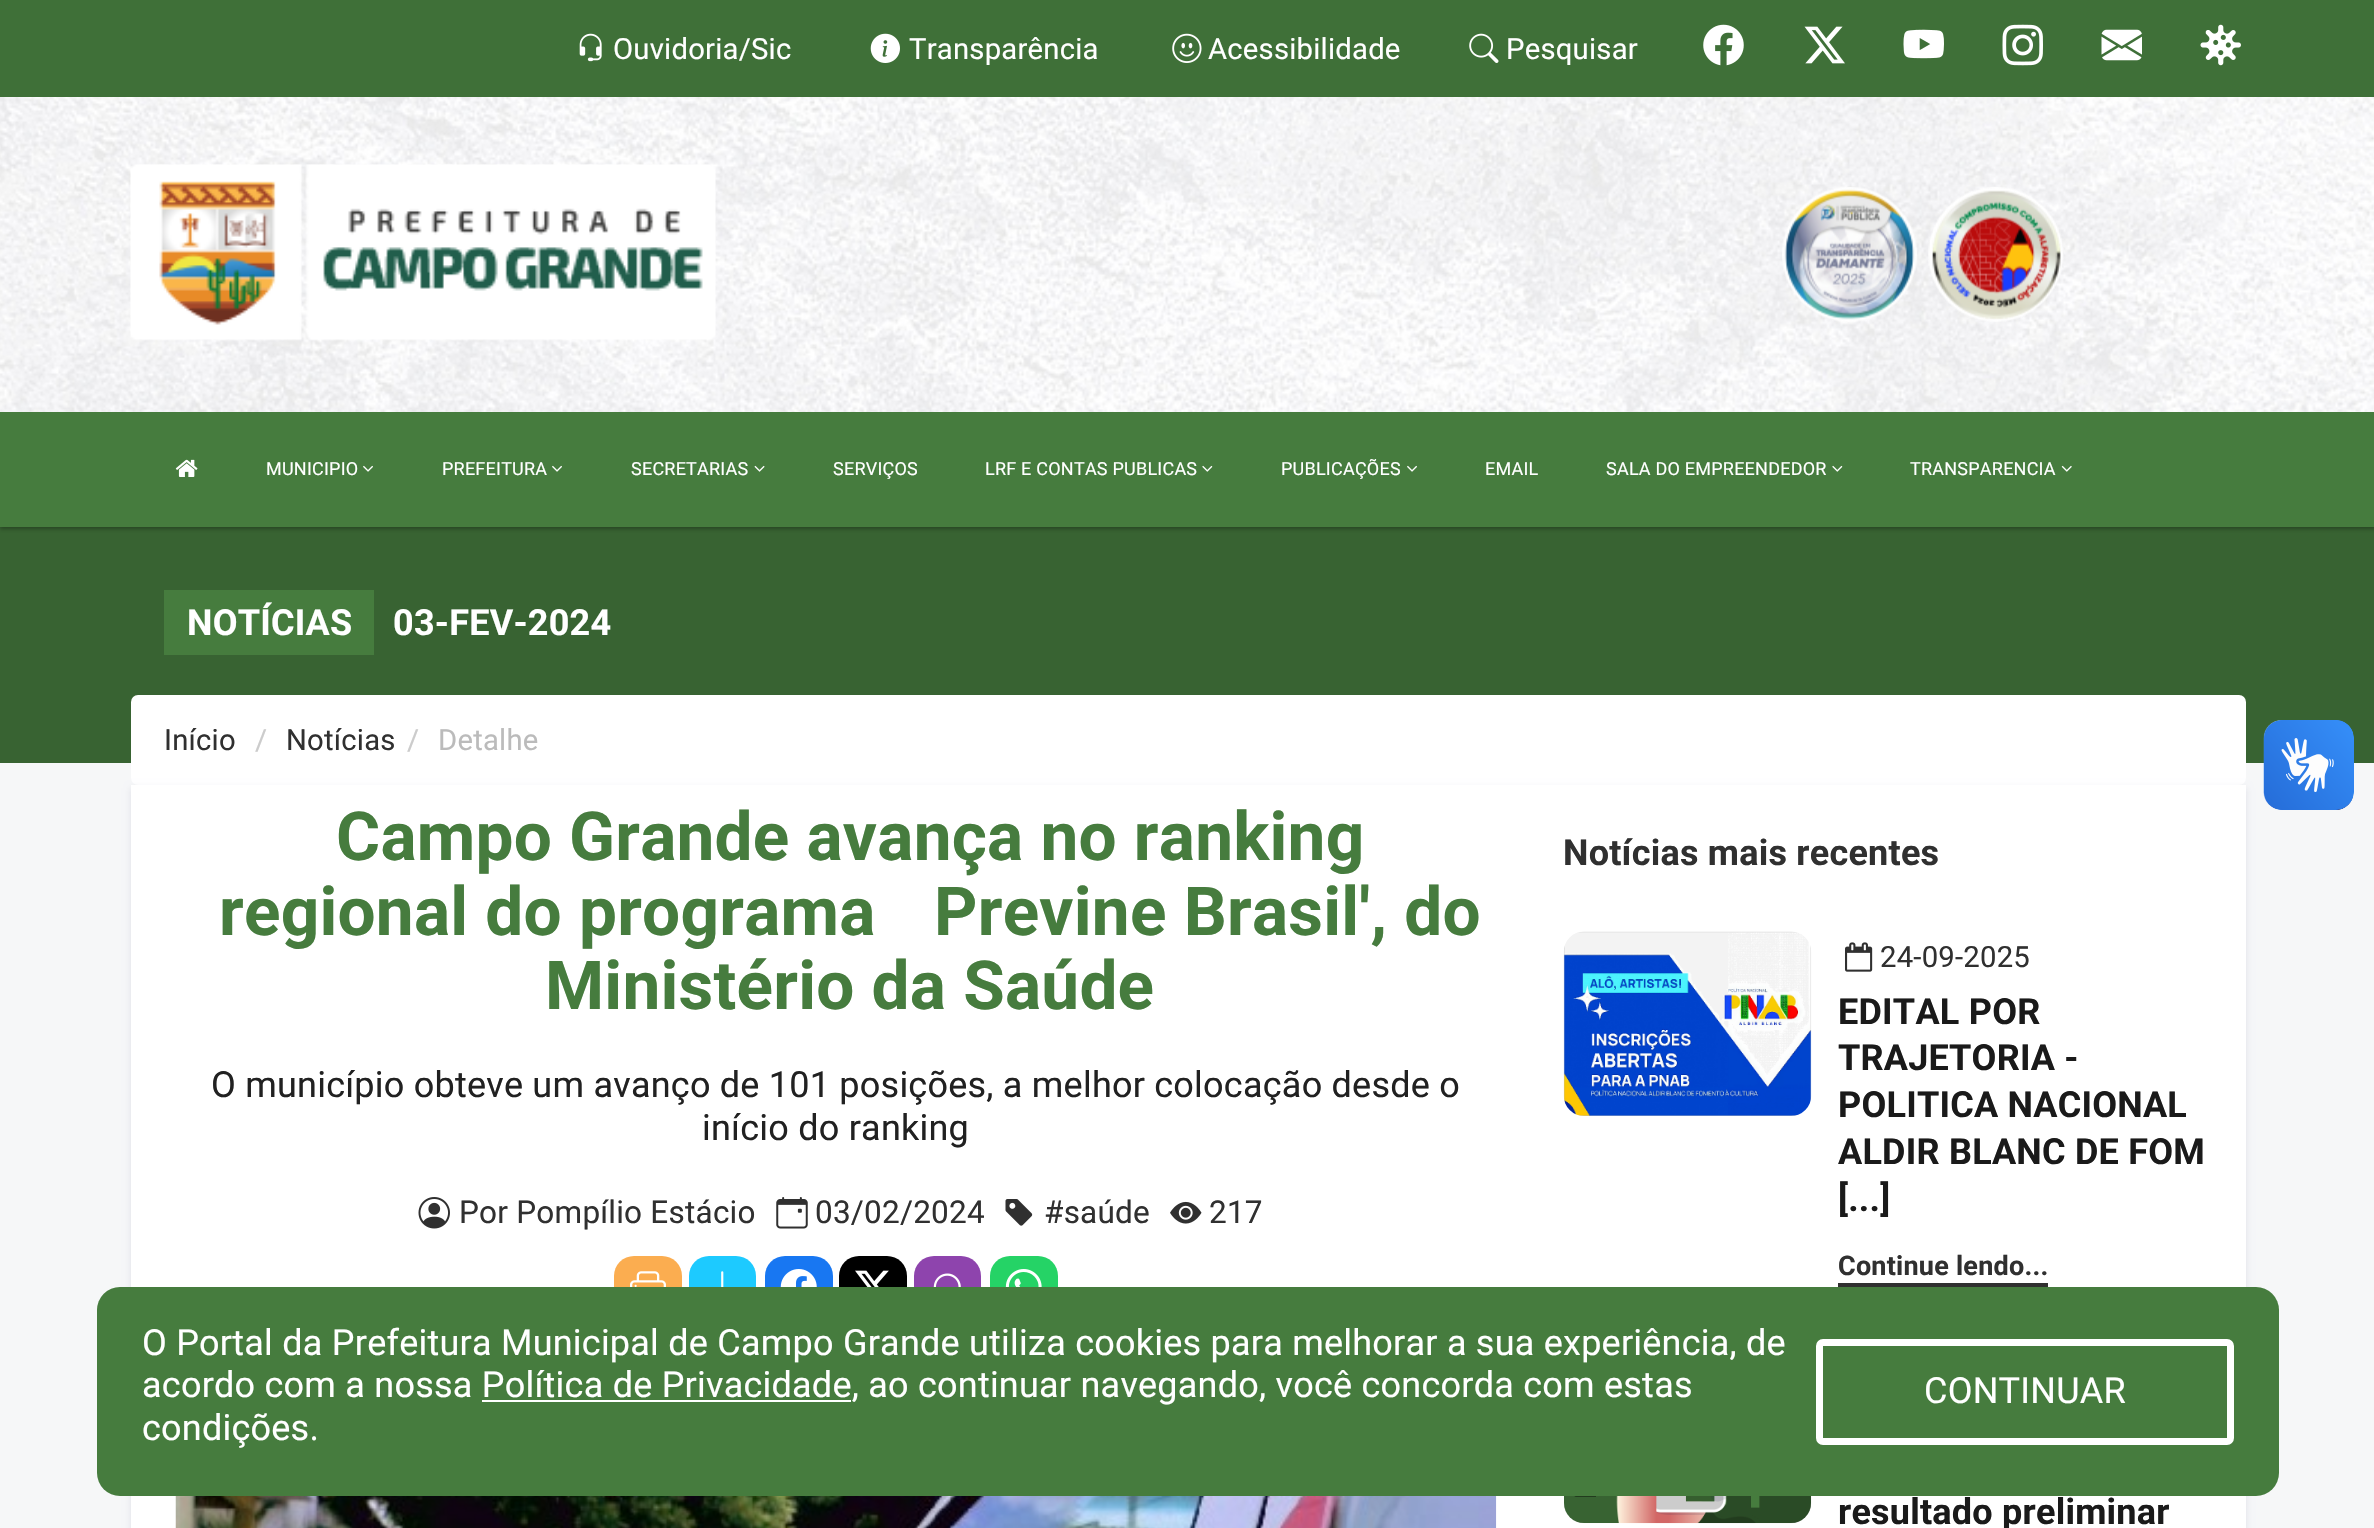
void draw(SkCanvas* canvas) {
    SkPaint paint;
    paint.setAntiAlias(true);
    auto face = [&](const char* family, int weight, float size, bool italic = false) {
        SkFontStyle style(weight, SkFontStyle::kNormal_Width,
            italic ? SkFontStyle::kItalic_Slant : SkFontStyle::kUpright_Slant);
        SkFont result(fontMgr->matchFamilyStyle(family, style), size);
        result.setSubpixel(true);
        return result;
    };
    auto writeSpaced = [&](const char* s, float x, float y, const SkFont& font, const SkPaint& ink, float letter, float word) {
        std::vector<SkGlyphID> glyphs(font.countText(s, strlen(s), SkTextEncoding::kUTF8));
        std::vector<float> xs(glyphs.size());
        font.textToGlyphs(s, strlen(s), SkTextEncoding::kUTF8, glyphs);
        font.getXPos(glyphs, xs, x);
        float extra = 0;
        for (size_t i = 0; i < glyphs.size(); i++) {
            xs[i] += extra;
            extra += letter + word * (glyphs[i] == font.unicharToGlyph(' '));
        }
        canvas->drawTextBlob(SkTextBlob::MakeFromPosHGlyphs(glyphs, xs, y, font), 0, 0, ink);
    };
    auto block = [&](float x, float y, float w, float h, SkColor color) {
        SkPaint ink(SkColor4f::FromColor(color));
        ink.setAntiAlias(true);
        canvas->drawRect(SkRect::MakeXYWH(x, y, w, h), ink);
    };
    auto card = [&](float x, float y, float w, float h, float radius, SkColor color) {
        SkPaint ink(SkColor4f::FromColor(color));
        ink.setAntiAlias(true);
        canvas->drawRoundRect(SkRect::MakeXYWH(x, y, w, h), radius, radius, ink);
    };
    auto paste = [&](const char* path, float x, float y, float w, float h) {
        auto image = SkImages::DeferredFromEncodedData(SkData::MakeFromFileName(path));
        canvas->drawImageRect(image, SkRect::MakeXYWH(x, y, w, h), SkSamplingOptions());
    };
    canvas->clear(SkColorSetRGB(246, 247, 248));
    block(0, 527, 2374, 236, SkColorSetRGB(56, 99, 50));
    paint.setColor(SkColorSetARGB(77, 0, 0, 0));
    paint.setMaskFilter(SkMaskFilter::MakeBlur(kNormal_SkBlurStyle, 2));
    canvas->drawRect(SkRect::MakeXYWH(0, 2, 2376, 527), paint);
    paint.setMaskFilter(nullptr);
    paste("pic1.png", 0, 97, 2374, 315);
    block(0, 0, 2374, 97, SkColorSetRGB(63, 112, 56));
    paste("pic2.png", 579, 33, 23, 29);
    auto kFont1 = face("Roboto", 400, 29.25f);
    paint.setColor(SK_ColorWHITE);
    writeSpaced("Ouvidoria/Sic", 613, 59, kFont1, paint, 0.23f, 0);
    paste("pic3.png", 870, 33, 30, 30);
    writeSpaced("Transparência", 909, 59, kFont1, paint, 0.23f, 0);
    paste("pic4.png", 1172, 33, 30, 30);
    writeSpaced("Acessibilidade", 1208, 59, kFont1, paint, 0.23f, 0);
    paste("pic5.png", 1469, 33, 30, 30);
    writeSpaced("Pesquisar", 1506, 59, kFont1, paint, 0.23f, 0);
    paste("pic6.png", 1703, 24, 41, 42);
    paste("pic7.png", 1804, 26, 41, 38);
    paste("pic8.png", 1903, 29, 41, 30);
    paste("pic9.png", 2002, 24, 41, 42);
    paste("pic10.png", 2101, 29, 41, 32);
    paste("pic11.png", 2200, 24, 41, 42);
    paste("pic12.png", 130, 164, 586, 177);
    paste("pic13.png", 1782, 187, 135, 135);
    paste("pic14.png", 1928, 187, 136, 135);
    block(0, 412, 2374, 115, SkColorSetRGB(70, 124, 62));
    paste("pic15.png", 175, 459, 23, 18);
    auto kFont2 = face("Roboto", 400, 18);
    writeSpaced("MUNICIPIO", 266, 475, kFont2, paint, 0.23f, 0);
    paste("pic16.png", 363, 465, 10, 7);
    writeSpaced("PREFEITURA", 442, 475, kFont2, paint, 0.23f, 0);
    paste("pic16.png", 552, 465, 10, 7);
    writeSpaced("SECRETARIAS", 631, 475, kFont2, paint, 0.23f, 0);
    paste("pic17.png", 754, 465, 11, 7);
    writeSpaced("SERVIÇOS", 833, 475, kFont2, paint, 0.23f, 0);
    writeSpaced("LRF E CONTAS PUBLICAS", 985, 475, kFont2, paint, 0.23f, 0);
    paste("pic18.png", 1202, 465, 11, 7);
    writeSpaced("PUBLICAÇÕES", 1281, 475, kFont2, paint, 0.23f, 0);
    paste("pic16.png", 1407, 465, 10, 7);
    writeSpaced("EMAIL", 1485, 475, kFont2, paint, 0.23f, 0);
    writeSpaced("SALA DO EMPREENDEDOR", 1606, 475, kFont2, paint, 0.23f, 0);
    paste("pic18.png", 1832, 465, 11, 7);
    writeSpaced("TRANSPARENCIA", 1910, 475, kFont2, paint, 0.23f, 0);
    paste("pic19.png", 2061, 465, 11, 7);
    block(164, 590, 210, 65, SkColorSetRGB(70, 124, 62));
    auto kFont3 = face("Roboto", 700, 36);
    writeSpaced("NOTÍCIAS", 187, 635, kFont3, paint, 0.23f, 0);
    writeSpaced("03-FEV-2024", 393, 635, kFont3, paint, 0.23f, 0);
    card(131, 695, 2115, 90, 7, SK_ColorWHITE);
    paint.setColor(SkColorSetRGB(48, 48, 48));
    writeSpaced("Início", 164, 750, kFont1, paint, 0.23f, 0);
    paint.setColor(SkColorSetRGB(204, 204, 204));
    writeSpaced("/", 255, 750, kFont1, paint, 0.23f, 0);
    paint.setColor(SkColorSetRGB(48, 48, 48));
    writeSpaced("Notícias", 286, 750, kFont1, paint, 0.23f, 0);
    paint.setColor(SkColorSetRGB(204, 204, 204));
    writeSpaced("/", 407, 750, kFont1, paint, 0.23f, 0);
    paint.setColor(SkColorSetRGB(187, 187, 187));
    writeSpaced("Detalhe", 438, 750, kFont1, paint, 0.23f, 0);
    paint.setColor(SkColorSetARGB(23, 3, 0, 71));
    paint.setMaskFilter(SkMaskFilter::MakeBlur(kNormal_SkBlurStyle, 3.5f));
    canvas->drawRect(SkRect::MakeXYWH(131, 788, 2115, 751), paint);
    paint.setMaskFilter(nullptr);
    block(131, 785, 2115, 743, SK_ColorWHITE);
    auto kFont4 = face("Roboto", 700, 67.5f);
    paint.setColor(SkColorSetRGB(70, 124, 62));
    writeSpaced("Campo Grande avança no ranking", 336, 860, kFont4, paint, 0.23f, 0);
    writeSpaced("regional do programa", 219, 935, kFont4, paint, 0.23f, 0);
    writeSpaced("Previne Brasil', do", 934, 935, kFont4, paint, 0.23f, 0);
    writeSpaced("Ministério da Saúde", 545, 1009, kFont4, paint, 0.23f, 0);
    auto kFont5 = face("Roboto", 400, 36);
    paint.setColor(SkColorSetRGB(33, 33, 33));
    writeSpaced("O município obteve um avanço de 101 posições, a melhor colocação desde o", 211, 1097, kFont5, paint, 0.23f, 0);
    writeSpaced("início do ranking", 702, 1140, kFont5, paint, 0.23f, 0);
    paste("pic20.png", 418, 1197, 32, 32);
    auto kFont6 = face("Roboto", 400, 31.5f);
    paint.setColor(SkColorSetRGB(48, 48, 48));
    writeSpaced("Por Pompílio Estácio", 459, 1223, kFont6, paint, 0.23f, 0);
    paste("pic21.png", 776, 1197, 32, 32);
    writeSpaced("03/02/2024", 815, 1223, kFont6, paint, 0.23f, 0);
    paste("pic22.png", 1005, 1199, 28, 27);
    writeSpaced("#saúde", 1044, 1223, kFont6, paint, 0.23f, 0);
    paste("pic23.png", 1170, 1201, 32, 23);
    writeSpaced("217", 1209, 1223, kFont6, paint, 0.23f, 0);
    card(614, 1256, 68, 67, 20, SkColorSetRGB(251, 173, 80));
    paste("pic24.png", 630, 1271, 36, 16);
    card(689, 1256, 67, 67, 20, SkColorSetRGB(29, 202, 255));
    paste("pic25.png", 721, 1271, 3, 16);
    card(765, 1256, 68, 67, 20, SkColorSetRGB(24, 119, 242));
    paste("pic26.png", 780, 1269, 37, 18);
    card(839, 1256, 68, 67, 20, SK_ColorBLACK);
    paste("pic27.png", 855, 1270, 34, 17);
    card(914, 1256, 67, 67, 20, SkColorSetRGB(142, 68, 173));
    paste("pic28.png", 933, 1273, 28, 14);
    card(990, 1256, 68, 67, 20, SkColorSetRGB(37, 211, 102));
    paste("pic29.png", 1005, 1269, 37, 18);
    paste("pic30.png", 175, 1496, 1322, 32);
    writeSpaced("Notícias mais recentes", 1563, 865, kFont3, paint, 0.23f, 0);
    paste("pic31.png", 1563, 931, 249, 185);
    paste("pic32.png", 1845, 942, 28, 30);
    writeSpaced("24-09-2025", 1880, 967, kFont1, paint, 0.23f, 0);
    paint.setColor(SkColorSetRGB(26, 26, 26));
    writeSpaced("EDITAL POR", 1838, 1024, kFont3, paint, 0.23f, 0);
    writeSpaced("TRAJETORIA -", 1838, 1070, kFont3, paint, 0.23f, 0);
    writeSpaced("POLITICA NACIONAL", 1838, 1117, kFont3, paint, 0.23f, 0);
    writeSpaced("ALDIR BLANC DE FOM", 1838, 1164, kFont3, paint, 0.23f, 0);
    writeSpaced("[...]", 1838, 1211, kFont3, paint, 0.23f, 0);
    auto kFont7 = face("Roboto", 700, 27);
    paint.setColor(SkColorSetRGB(48, 48, 48));
    writeSpaced("Continue lendo...", 1838, 1275, kFont7, paint, 0.23f, 0);
    block(1838, 1283, 210, 4, SkColorSetRGB(48, 48, 48));
    card(1564, 1339, 247, 184, 20, SkColorSetRGB(70, 124, 62));
    paste("pic33.png", 1564, 1496, 248, 28);
    paint.setColor(SkColorSetRGB(26, 26, 26));
    writeSpaced("resultado preliminar", 1838, 1524, kFont3, paint, 0.23f, 0);
    paste("pic34.png", 2263, 720, 91, 90);
    paste("pic35.png", 2264, 720, 90, 90);
    card(97, 1287, 2182, 209, 23, SkColorSetRGB(70, 124, 62));
    paint.setColor(SK_ColorWHITE);
    writeSpaced("O Portal da Prefeitura Municipal de Campo Grande utiliza cookies para melhorar a sua experiência, de", 142, 1355, kFont5, paint, 0.23f, 0);
    writeSpaced("acordo com a nossa Política de Privacidade, ao continuar navegando, você concorda com estas", 142, 1397, kFont5, paint, 0.23f, 0);
    block(482, 1400, 369, 2, SK_ColorWHITE);
    writeSpaced("condições.", 142, 1440, kFont5, paint, 0.23f, 0);
    paint.setStyle(SkPaint::kStroke_Style);
    paint.setStrokeWidth(7);
    canvas->drawRoundRect(SkRect::MakeXYWH(1819.5f, 1342.5f, 411, 99), 3.5f, 3.5f, paint);
    paint.setStyle(SkPaint::kFill_Style);
    writeSpaced("CONTINUAR", 1924, 1403, kFont5, paint, 0.23f, 0);
}
